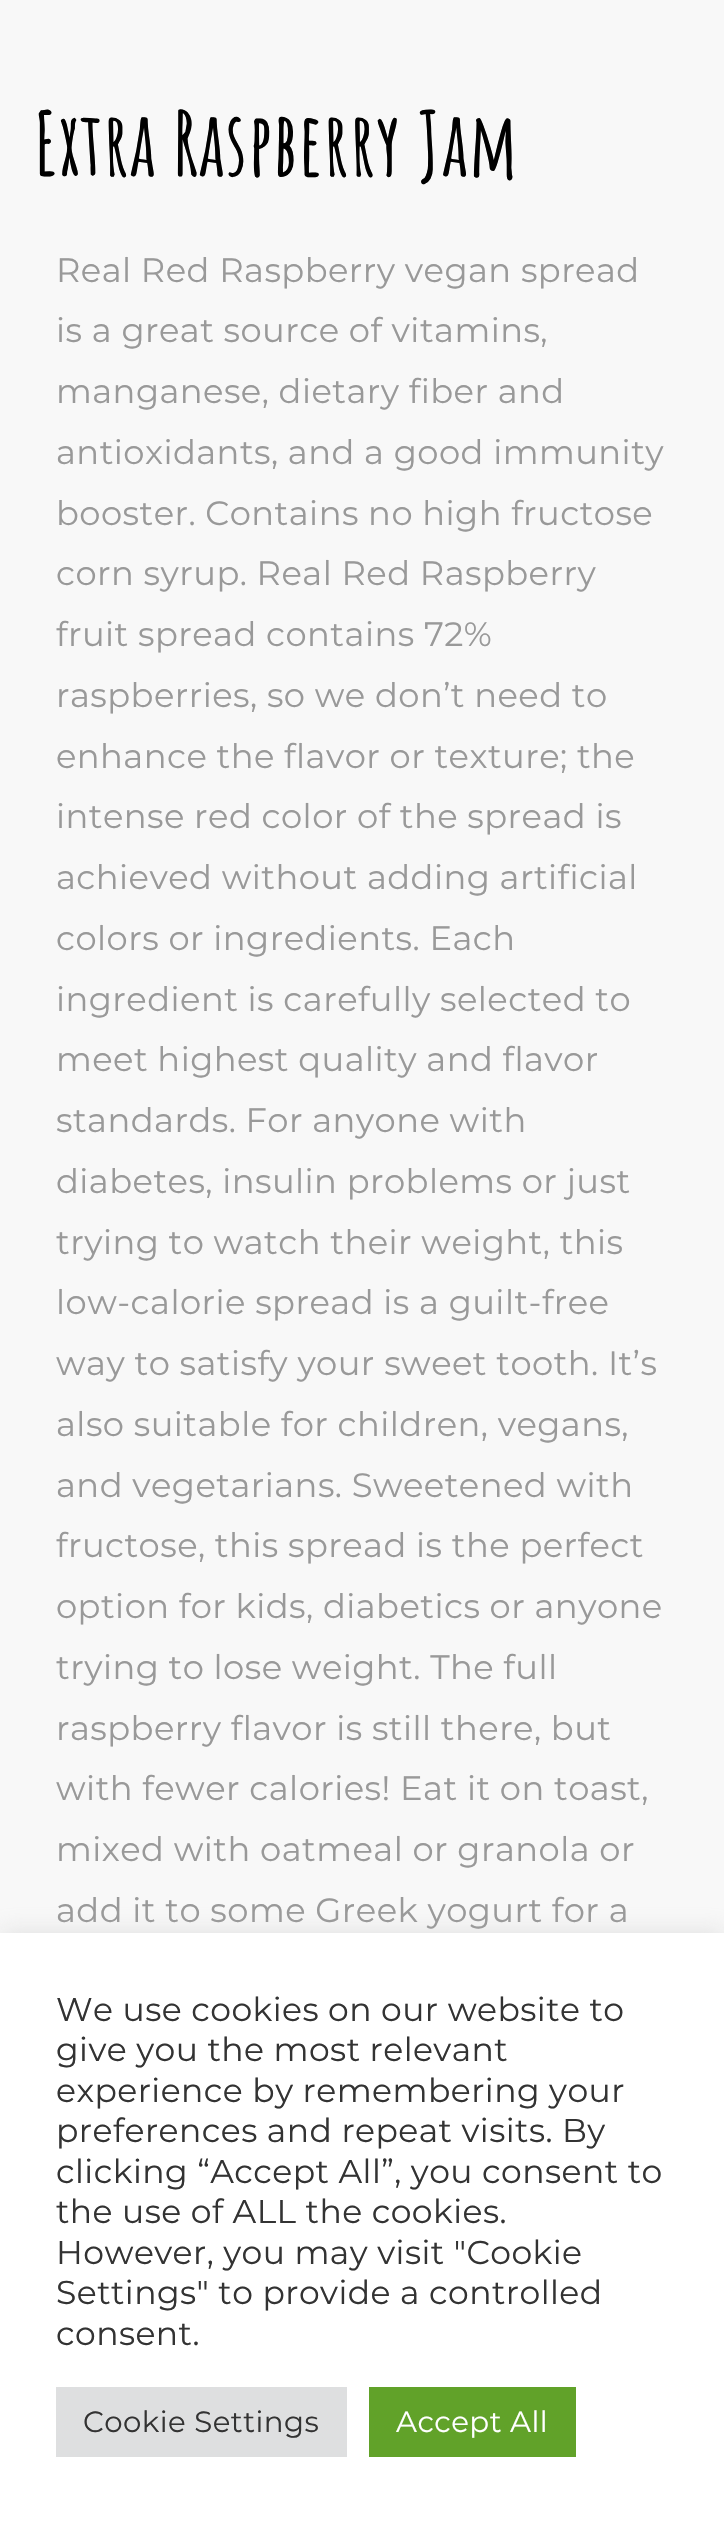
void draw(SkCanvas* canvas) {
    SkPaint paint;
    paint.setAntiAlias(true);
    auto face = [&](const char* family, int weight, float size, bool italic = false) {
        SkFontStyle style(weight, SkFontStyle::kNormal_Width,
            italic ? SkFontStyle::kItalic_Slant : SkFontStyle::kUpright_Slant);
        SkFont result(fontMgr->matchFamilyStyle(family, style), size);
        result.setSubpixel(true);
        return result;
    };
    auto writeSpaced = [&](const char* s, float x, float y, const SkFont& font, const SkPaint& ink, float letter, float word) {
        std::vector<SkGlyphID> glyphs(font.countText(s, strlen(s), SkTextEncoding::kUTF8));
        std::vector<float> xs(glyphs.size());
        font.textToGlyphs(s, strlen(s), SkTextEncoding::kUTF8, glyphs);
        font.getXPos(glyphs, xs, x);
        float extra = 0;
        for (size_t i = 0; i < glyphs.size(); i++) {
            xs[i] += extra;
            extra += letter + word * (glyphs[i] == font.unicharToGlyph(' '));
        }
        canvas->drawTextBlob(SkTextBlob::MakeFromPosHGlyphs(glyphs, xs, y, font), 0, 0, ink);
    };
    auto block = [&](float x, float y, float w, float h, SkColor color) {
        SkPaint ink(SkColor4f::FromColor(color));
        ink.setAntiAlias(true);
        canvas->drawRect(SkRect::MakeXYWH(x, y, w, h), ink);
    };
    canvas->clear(SkColorSetRGB(248, 248, 248));
    auto kFont1 = face("Amatic SC", 700, 87.75f);
    paint.setColor(SK_ColorBLACK);
    writeSpaced("Extra Raspberry Jam", 34, 176, kFont1, paint, 0.45f, 0);
    auto kFont2 = face("Montserrat", 400, 33.75f);
    paint.setColor(SkColorSetRGB(153, 153, 153));
    writeSpaced("Real Red Raspberry vegan spread", 56, 282, kFont2, paint, 0.45f, 0);
    writeSpaced("is a great source of vitamins,", 56, 342, kFont2, paint, 0.45f, 0);
    writeSpaced("manganese, dietary fiber and", 56, 403, kFont2, paint, 0.45f, 0);
    writeSpaced("antioxidants, and a good immunity", 56, 464, kFont2, paint, 0.45f, 0);
    writeSpaced("booster. Contains no high fructose", 56, 525, kFont2, paint, 0.45f, 0);
    writeSpaced("corn syrup. Real Red Raspberry", 56, 585, kFont2, paint, 0.45f, 0);
    writeSpaced("fruit spread contains 72%", 56, 646, kFont2, paint, 0.45f, 0);
    writeSpaced("raspberries, so we don’t need to", 56, 707, kFont2, paint, 0.45f, 0);
    writeSpaced("enhance the flavor or texture; the", 56, 768, kFont2, paint, 0.45f, 0);
    writeSpaced("intense red color of the spread is", 56, 828, kFont2, paint, 0.45f, 0);
    writeSpaced("achieved without adding artificial", 56, 889, kFont2, paint, 0.45f, 0);
    writeSpaced("colors or ingredients. Each", 56, 950, kFont2, paint, 0.45f, 0);
    writeSpaced("ingredient is carefully selected to", 56, 1011, kFont2, paint, 0.45f, 0);
    writeSpaced("meet highest quality and flavor", 56, 1071, kFont2, paint, 0.45f, 0);
    writeSpaced("standards. For anyone with", 56, 1132, kFont2, paint, 0.45f, 0);
    writeSpaced("diabetes, insulin problems or just", 56, 1193, kFont2, paint, 0.45f, 0);
    writeSpaced("trying to watch their weight, this", 56, 1254, kFont2, paint, 0.45f, 0);
    writeSpaced("low-calorie spread is a guilt-free", 56, 1314, kFont2, paint, 0.45f, 0);
    writeSpaced("way to satisfy your sweet tooth. It’s", 56, 1375, kFont2, paint, 0.45f, 0);
    writeSpaced("also suitable for children, vegans,", 56, 1436, kFont2, paint, 0.45f, 0);
    writeSpaced("and vegetarians. Sweetened with", 56, 1497, kFont2, paint, 0.45f, 0);
    writeSpaced("fructose, this spread is the perfect", 56, 1557, kFont2, paint, 0.45f, 0);
    writeSpaced("option for kids, diabetics or anyone", 56, 1618, kFont2, paint, 0.45f, 0);
    writeSpaced("trying to lose weight. The full", 56, 1679, kFont2, paint, 0.45f, 0);
    writeSpaced("raspberry flavor is still there, but", 56, 1740, kFont2, paint, 0.45f, 0);
    writeSpaced("with fewer calories! Eat it on toast,", 56, 1800, kFont2, paint, 0.45f, 0);
    writeSpaced("mixed with oatmeal or granola or", 56, 1861, kFont2, paint, 0.45f, 0);
    writeSpaced("add it to some Greek yogurt for a", 56, 1922, kFont2, paint, 0.45f, 0);
    paint.setColor(SkColorSetARGB(77, 172, 171, 171));
    paint.setMaskFilter(SkMaskFilter::MakeBlur(kNormal_SkBlurStyle, 11));
    canvas->drawRect(SkRect::MakeXYWH(0, 1931, 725, 591), paint);
    paint.setMaskFilter(nullptr);
    block(0, 1933, 724, 591, SK_ColorWHITE);
    auto kFont3 = face("Montserrat", 400, 33);
    paint.setColor(SkColorSetRGB(51, 51, 51));
    writeSpaced("We use cookies on our website to", 56, 2021, kFont3, paint, 0.45f, 0);
    writeSpaced("give you the most relevant", 56, 2061, kFont3, paint, 0.45f, 0);
    writeSpaced("experience by remembering your", 56, 2102, kFont3, paint, 0.45f, 0);
    writeSpaced("preferences and repeat visits. By", 56, 2142, kFont3, paint, 0.45f, 0);
    writeSpaced("clicking “Accept All”, you consent to", 56, 2183, kFont3, paint, 0.45f, 0);
    writeSpaced("the use of ALL the cookies.", 56, 2223, kFont3, paint, 0.45f, 0);
    writeSpaced("However, you may visit \"Cookie", 56, 2264, kFont3, paint, 0.45f, 0);
    writeSpaced("Settings\" to provide a controlled", 56, 2304, kFont3, paint, 0.45f, 0);
    writeSpaced("consent.", 56, 2345, kFont3, paint, 0.45f, 0);
    block(56, 2387, 291, 70, SkColorSetRGB(222, 223, 224));
    auto kFont4 = face("Montserrat", 400, 29.25f);
    writeSpaced("Cookie Settings", 83, 2432, kFont4, paint, 0.45f, 0);
    block(369, 2387, 207, 70, SkColorSetRGB(97, 162, 41));
    paint.setColor(SK_ColorWHITE);
    writeSpaced("Accept All", 396, 2432, kFont4, paint, 0.45f, 0);
}
